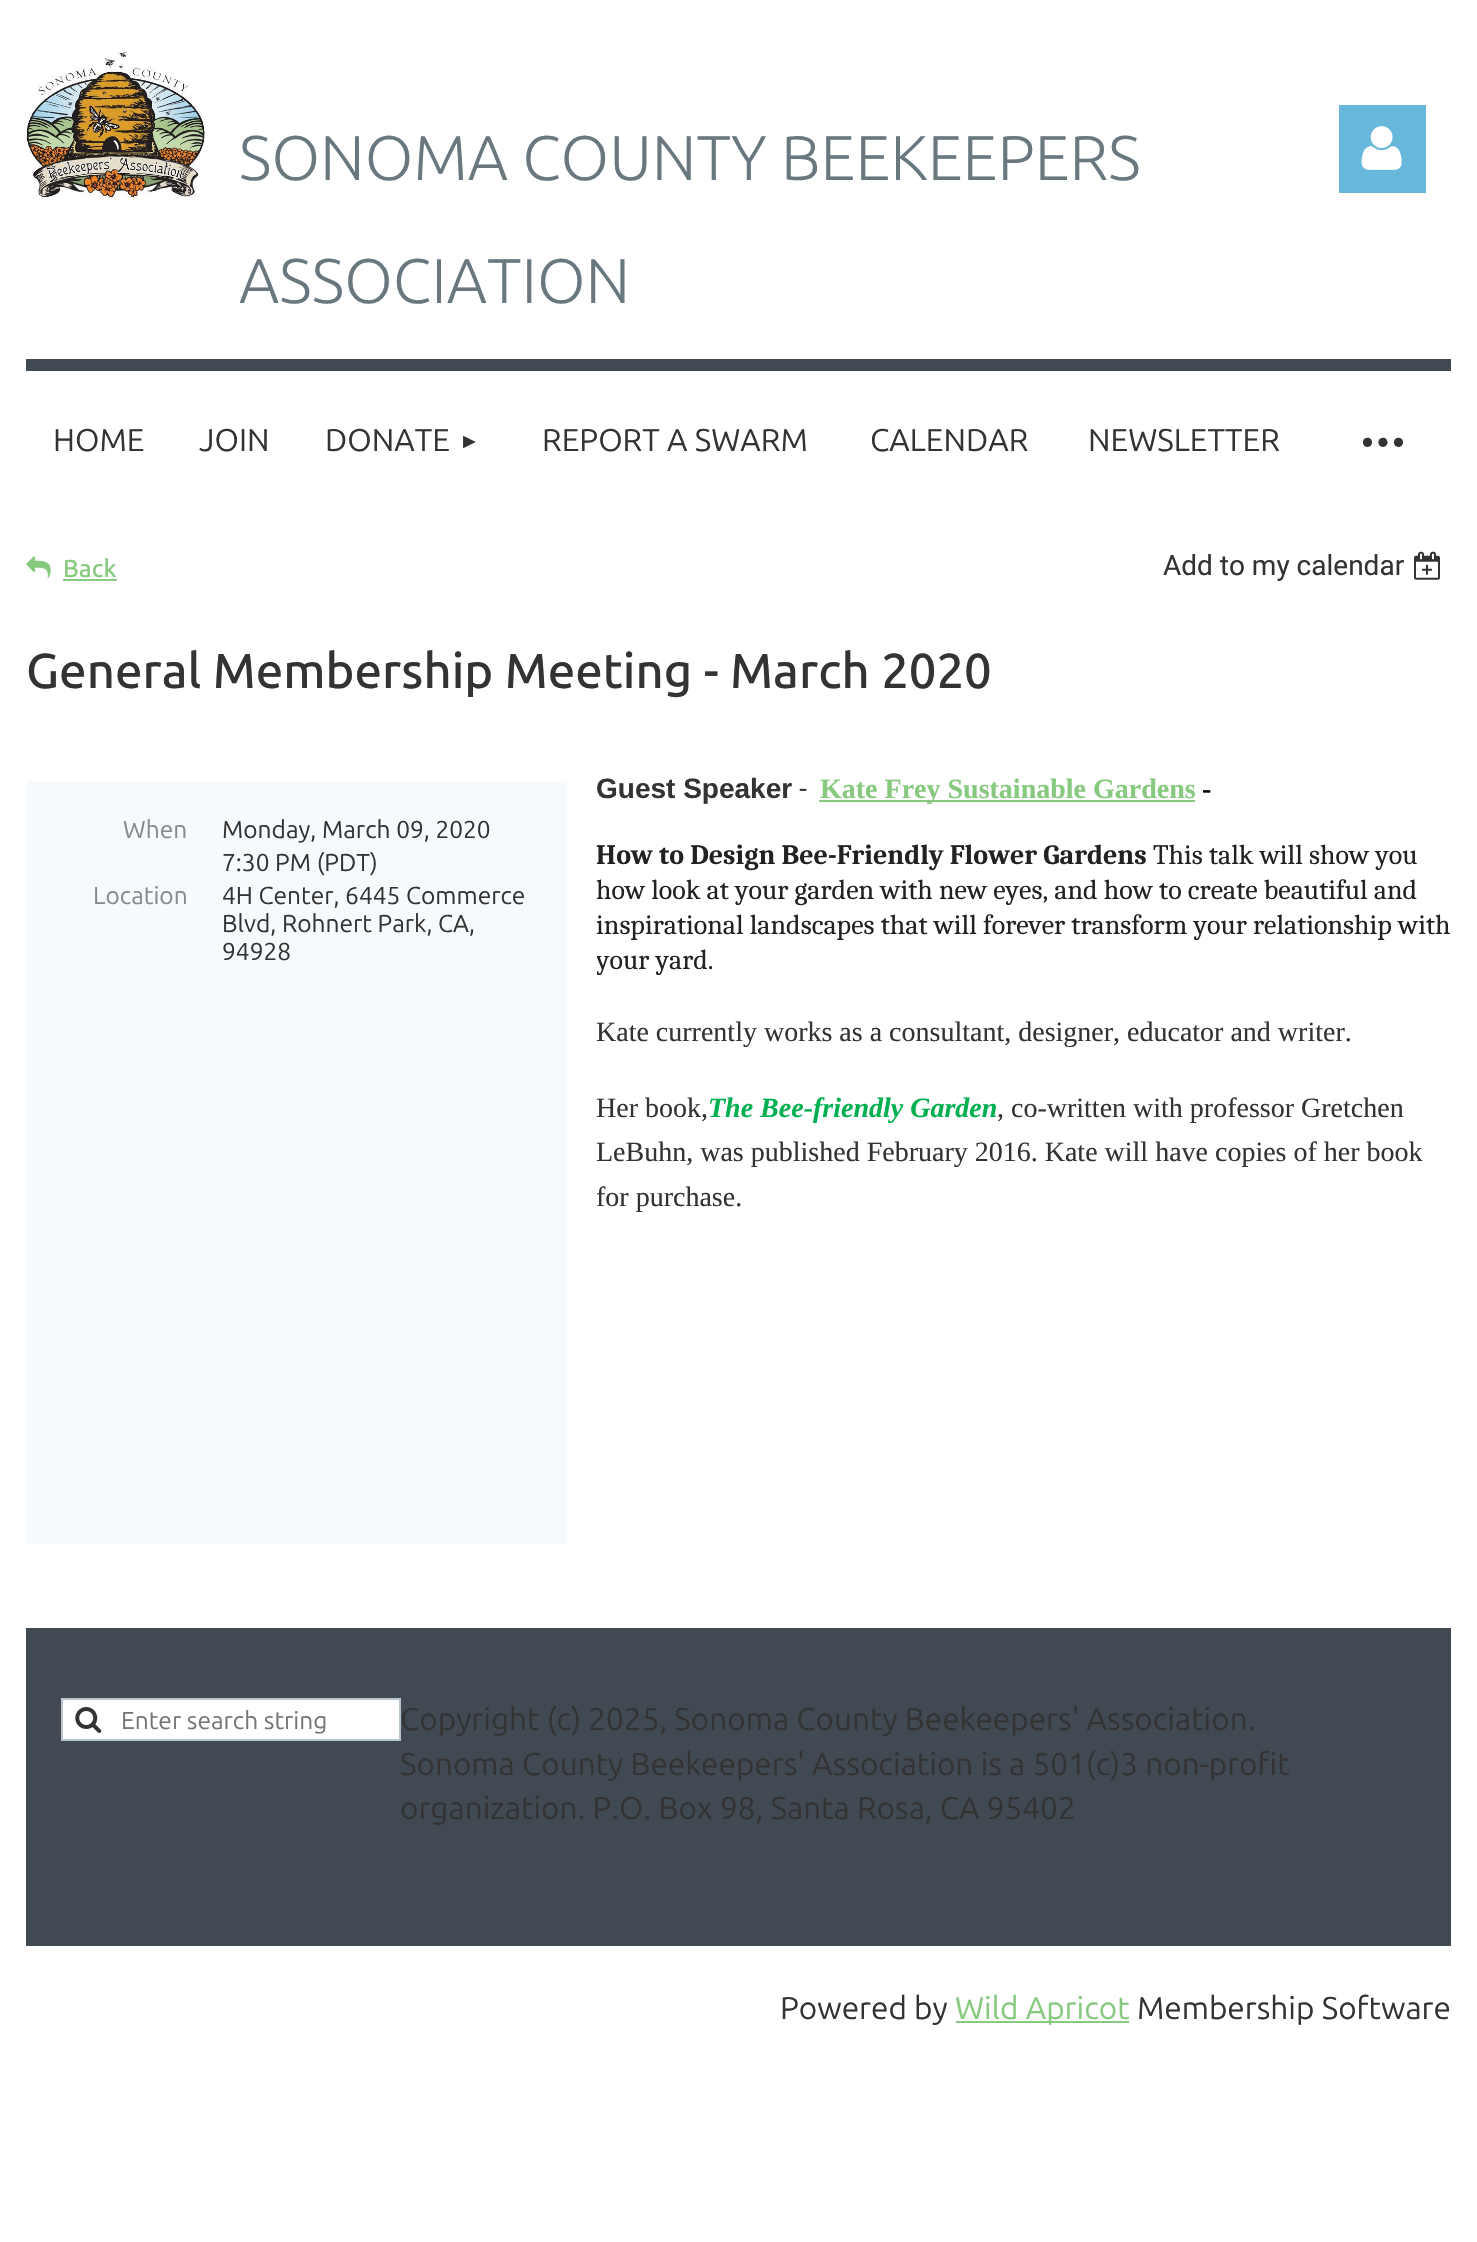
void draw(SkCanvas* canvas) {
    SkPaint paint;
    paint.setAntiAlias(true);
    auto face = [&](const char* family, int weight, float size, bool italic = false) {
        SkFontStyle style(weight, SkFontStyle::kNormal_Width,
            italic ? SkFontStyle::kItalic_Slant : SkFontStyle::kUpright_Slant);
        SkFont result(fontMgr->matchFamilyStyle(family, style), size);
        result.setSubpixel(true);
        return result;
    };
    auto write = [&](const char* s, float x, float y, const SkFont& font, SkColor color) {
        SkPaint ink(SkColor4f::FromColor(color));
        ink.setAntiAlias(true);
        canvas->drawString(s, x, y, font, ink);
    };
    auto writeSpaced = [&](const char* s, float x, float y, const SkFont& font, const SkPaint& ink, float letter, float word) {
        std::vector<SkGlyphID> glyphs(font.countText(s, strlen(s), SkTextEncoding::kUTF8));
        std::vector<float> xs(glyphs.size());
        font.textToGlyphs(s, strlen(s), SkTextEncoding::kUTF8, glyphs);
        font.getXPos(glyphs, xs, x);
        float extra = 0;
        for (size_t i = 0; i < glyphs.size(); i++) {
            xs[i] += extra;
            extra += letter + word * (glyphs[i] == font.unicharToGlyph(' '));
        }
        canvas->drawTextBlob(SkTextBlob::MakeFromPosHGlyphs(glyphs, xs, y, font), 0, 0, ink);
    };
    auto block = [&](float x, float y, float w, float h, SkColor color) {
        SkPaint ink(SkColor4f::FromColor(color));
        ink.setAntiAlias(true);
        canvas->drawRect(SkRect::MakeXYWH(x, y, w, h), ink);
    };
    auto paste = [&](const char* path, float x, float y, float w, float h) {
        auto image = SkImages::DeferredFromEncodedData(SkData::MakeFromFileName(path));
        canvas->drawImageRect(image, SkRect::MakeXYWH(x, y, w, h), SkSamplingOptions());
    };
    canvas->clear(SK_ColorWHITE);
    paste("pic1.png", 26, 51, 179, 148);
    auto kFont1 = face("Ubuntu", 300, 63);
    write("SONOMA COUNTY BEEKEEPERS", 239, 180, kFont1, SkColorSetRGB(105, 119, 127));
    write("ASSOCIATION", 239, 303, kFont1, SkColorSetRGB(105, 119, 127));
    block(1339, 105, 87, 88, SkColorSetRGB(103, 184, 219));
    paste("pic2.png", 1361, 126, 41, 44);
    block(26, 359, 1425, 12, SkColorSetRGB(65, 74, 83));
    auto kFont2 = face("Ubuntu", 400, 31.5f);
    write("HOME", 53, 451, kFont2, SkColorSetRGB(51, 51, 51));
    write("JOIN", 199, 451, kFont2, SkColorSetRGB(51, 51, 51));
    write("DONATE", 325, 451, kFont2, SkColorSetRGB(51, 51, 51));
    auto kFont3 = face("Liberation Sans", 400, 21);
    write("►", 459, 448, kFont3, SkColorSetRGB(51, 51, 51));
    write("REPORT A SWARM", 542, 451, kFont2, SkColorSetRGB(51, 51, 51));
    write("CALENDAR", 870, 451, kFont2, SkColorSetRGB(51, 51, 51));
    write("NEWSLETTER", 1088, 451, kFont2, SkColorSetRGB(51, 51, 51));
    auto kFont4 = face("Ubuntu", 400, 77);
    paint.setColor(SkColorSetRGB(51, 51, 51));
    writeSpaced("···", 1358, 465, kFont4, paint, -3.5f, 0);
    paste("pic3.png", 26, 556, 25, 23);
    auto kFont5 = face("Ubuntu", 500, 24.5f);
    write("Back", 63, 577, kFont5, SkColorSetRGB(135, 201, 127));
    block(63, 579, 54, 2, SkColorSetRGB(135, 201, 127));
    auto kFont6 = face("Roboto", 400, 28);
    write("Add to my calendar", 1163, 575, kFont6, SkColorSetRGB(51, 51, 51));
    paste("pic4.png", 1414, 551, 26, 29);
    auto kFont7 = face("Ubuntu", 500, 49);
    write("General Membership Meeting - March 2020", 26, 688, kFont7, SkColorSetRGB(51, 51, 51));
    block(26, 781, 541, 763, SkColorSetRGB(246, 250, 253));
    auto kFont8 = face("Ubuntu", 400, 24.5f);
    write("When", 123, 838, kFont8, SkColorSetRGB(137, 137, 137));
    write("Monday, March 09, 2020", 222, 838, kFont8, SkColorSetRGB(51, 51, 51));
    write("7:30 PM (PDT)", 222, 871, kFont8, SkColorSetRGB(51, 51, 51));
    write("Location", 93, 904, kFont8, SkColorSetRGB(137, 137, 137));
    write("4H Center, 6445 Commerce", 222, 904, kFont8, SkColorSetRGB(51, 51, 51));
    write("Blvd, Rohnert Park, CA,", 222, 932, kFont8, SkColorSetRGB(51, 51, 51));
    write("94928", 222, 960, kFont8, SkColorSetRGB(51, 51, 51));
    auto kFont9 = face("Liberation Sans", 700, 28);
    write("Guest Speaker", 596, 798, kFont9, SkColorSetRGB(51, 51, 51));
    auto kFont10 = face("Ubuntu", 400, 28);
    write("-", 799, 798, kFont10, SkColorSetRGB(51, 51, 51));
    block(819, 800, 376, 2, SkColorSetRGB(135, 201, 127));
    auto kFont11 = face("Liberation Serif", 700, 28);
    write("Kate Frey Sustainable Gardens", 820, 798, kFont11, SkColorSetRGB(135, 201, 127));
    write("-", 1202, 798, kFont11, SK_ColorBLACK);
    auto kFont12 = face("Caladea", 700, 28);
    write("How to Design Bee-Friendly Flower Gardens", 596, 864, kFont12, SkColorSetRGB(34, 34, 34));
    auto kFont13 = face("Caladea", 400, 28);
    write("This talk will show you", 1153, 864, kFont13, SkColorSetRGB(34, 34, 34));
    write("how look at your garden with new eyes, and how to create beautiful and", 596, 899, kFont13, SkColorSetRGB(34, 34, 34));
    write("inspirational landscapes that will forever transform your relationship with", 596, 934, kFont13, SkColorSetRGB(34, 34, 34));
    canvas->save();
    canvas->clipRect(SkRect::MakeXYWH(597, 770, 854, 693));
    write("your yard.", 596, 969, kFont13, SkColorSetRGB(34, 34, 34));
    canvas->restore();
    auto kFont14 = face("Liberation Serif", 400, 28);
    write("Kate currently works as a consultant, designer, educator and writer.", 596, 1041, kFont14, SkColorSetRGB(51, 51, 51));
    write("Her book,", 596, 1117, kFont14, SkColorSetRGB(51, 51, 51));
    auto kFont15 = face("Liberation Serif", 700, 28, true);
    write("The Bee-friendly Garden", 708, 1117, kFont15, SkColorSetRGB(0, 176, 80));
    write(", co-written with professor Gretchen", 997, 1117, kFont14, SkColorSetRGB(51, 51, 51));
    write("LeBuhn, was published February 2016. Kate will have copies of her book", 596, 1161, kFont14, SkColorSetRGB(51, 51, 51));
    write("for purchase.", 596, 1206, kFont14, SkColorSetRGB(51, 51, 51));
    block(26, 1628, 1425, 318, SkColorSetRGB(65, 74, 83));
    paint.setColor(SK_ColorWHITE);
    canvas->drawRect(SkRect::MakeXYWH(62, 1699, 338, 41), paint);
    paint.setStyle(SkPaint::kStroke_Style);
    paint.setStrokeWidth(2);
    paint.setColor(SkColorSetRGB(184, 198, 205));
    canvas->drawRect(SkRect::MakeXYWH(62, 1699, 338, 41), paint);
    paste("pic5.png", 75, 1707, 27, 26);
    write("Enter search string", 121, 1729, kFont8, SkColorSetRGB(117, 117, 117));
    write("Copyright (c) 2025, Sonoma County Beekeepers' Association.", 400, 1730, kFont2, SkColorSetRGB(51, 51, 51));
    write("Sonoma County Beekeepers' Association is a 501(c)3 non-profit", 400, 1775, kFont2, SkColorSetRGB(51, 51, 51));
    write("organization. P.O. Box 98, Santa Rosa, CA 95402", 400, 1819, kFont2, SkColorSetRGB(51, 51, 51));
    write("Powered by", 780, 2019, kFont2, SkColorSetRGB(51, 51, 51));
    block(956, 2021, 173, 2, SkColorSetRGB(135, 201, 127));
    write("Wild Apricot", 955, 2019, kFont2, SkColorSetRGB(135, 201, 127));
    write("Membership Software", 1137, 2019, kFont2, SkColorSetRGB(51, 51, 51));
}
